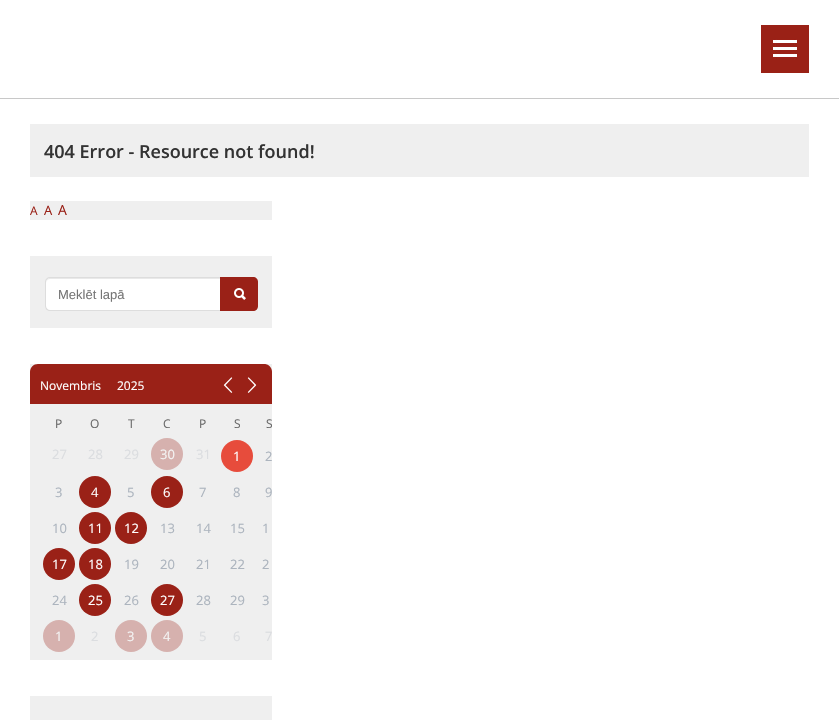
void draw(SkCanvas* canvas) {
    SkPaint paint;
    paint.setAntiAlias(true);
    auto face = [&](const char* family, int weight, float size, bool italic = false) {
        SkFontStyle style(weight, SkFontStyle::kNormal_Width,
            italic ? SkFontStyle::kItalic_Slant : SkFontStyle::kUpright_Slant);
        SkFont result(fontMgr->matchFamilyStyle(family, style), size);
        result.setSubpixel(true);
        return result;
    };
    auto write = [&](const char* s, float x, float y, const SkFont& font, SkColor color) {
        SkPaint ink(SkColor4f::FromColor(color));
        ink.setAntiAlias(true);
        canvas->drawString(s, x, y, font, ink);
    };
    auto block = [&](float x, float y, float w, float h, SkColor color) {
        SkPaint ink(SkColor4f::FromColor(color));
        ink.setAntiAlias(true);
        canvas->drawRect(SkRect::MakeXYWH(x, y, w, h), ink);
    };
    auto paste = [&](const char* path, float x, float y, float w, float h) {
        auto image = SkImages::DeferredFromEncodedData(SkData::MakeFromFileName(path));
        canvas->drawImageRect(image, SkRect::MakeXYWH(x, y, w, h), SkSamplingOptions());
    };
    canvas->clear(SK_ColorWHITE);
    block(0, 98, 839, 1, SkColorSetRGB(200, 200, 200));
    block(761, 25, 48, 48, SkColorSetRGB(154, 33, 22));
    paste("pic1.png", 773, 39, 24, 21);
    block(30, 124, 779, 53, SkColorSetRGB(239, 239, 239));
    auto kFont1 = face("Open Sans", 600, 18);
    write("404 Error - Resource not found!", 44, 158, kFont1, SkColorSetRGB(51, 51, 51));
    block(30, 201, 242, 19, SkColorSetRGB(239, 239, 239));
    auto kFont2 = face("Open Sans", 400, 12);
    write("A", 30, 215, kFont2, SkColorSetRGB(154, 33, 23));
    auto kFont3 = face("Open Sans", 400, 13);
    write("A", 44, 215, kFont3, SkColorSetRGB(154, 33, 23));
    auto kFont4 = face("Open Sans", 400, 14);
    write("A", 58, 215, kFont4, SkColorSetRGB(154, 33, 23));
    block(30, 256, 242, 72, SkColorSetRGB(239, 239, 239));
    paint.setColor(SK_ColorWHITE);
    canvas->drawPath(SkPathBuilder().moveTo(50, 277).lineTo(223, 277).lineTo(223, 311).lineTo(50, 311).cubicTo(47, 311, 45, 309, 45, 306).lineTo(45, 282).cubicTo(45, 279, 47, 277, 50, 277).close().detach(), paint);
    paint.setColor(SkColorSetRGB(233, 233, 233));
    canvas->drawPath(SkPathBuilder().moveTo(50, 279).lineTo(223, 279).lineTo(223, 278).lineTo(49, 278).cubicTo(47, 279, 46, 281, 46, 283).cubicTo(46, 281, 48, 279, 50, 279).close().detach(), paint);
    paint.setColor(SkColorSetRGB(221, 221, 221));
    canvas->drawPath(SkPathBuilder(SkPathFillType::kEvenOdd).moveTo(50, 277).lineTo(223, 277).lineTo(223, 311).lineTo(50, 311).cubicTo(47, 311, 45, 309, 45, 306).lineTo(45, 282).cubicTo(45, 279, 47, 277, 50, 277).close().moveTo(50, 278).lineTo(223, 278).lineTo(223, 310).lineTo(50, 310).cubicTo(48, 310, 46, 308, 46, 306).lineTo(46, 282).cubicTo(46, 280, 48, 278, 50, 278).close().detach(), paint);
    auto kFont5 = face("Liberation Sans", 400, 13);
    write("Meklēt lapā", 58, 299, kFont5, SkColorSetRGB(117, 117, 117));
    paint.setColor(SkColorSetRGB(154, 33, 23));
    canvas->drawPath(SkPathBuilder().moveTo(220, 277).lineTo(253, 277).cubicTo(256, 277, 258, 279, 258, 282).lineTo(258, 306).cubicTo(258, 309, 256, 311, 253, 311).lineTo(220, 311).close().detach(), paint);
    paste("pic2.png", 234, 288, 12, 12);
    block(30, 364, 242, 296, SkColorSetRGB(239, 239, 239));
    canvas->drawPath(SkPathBuilder().moveTo(38, 364).lineTo(264, 364).cubicTo(268.5f, 364, 272, 367.5f, 272, 372).lineTo(272, 404).lineTo(30, 404).lineTo(30, 372).cubicTo(30, 367.5f, 33.5f, 364, 38, 364).close().detach(), paint);
    write("Novembris", 40, 390, kFont2, SK_ColorWHITE);
    write("2025", 117, 390, kFont2, SK_ColorWHITE);
    paste("pic3.png", 223, 377, 10, 16);
    canvas->drawPath(SkPathBuilder().moveTo(244, 364).lineTo(264, 364).cubicTo(266, 364, 268, 366, 268, 368).lineTo(268, 400).cubicTo(268, 402, 266, 404, 264, 404).lineTo(244, 404).close().detach(), paint);
    paste("pic4.png", 247, 377, 10, 16);
    write("P", 55, 428, kFont2, SkColorSetRGB(105, 105, 105));
    write("O", 90, 428, kFont2, SkColorSetRGB(105, 105, 105));
    write("T", 128, 428, kFont2, SkColorSetRGB(105, 105, 105));
    write("C", 163, 428, kFont2, SkColorSetRGB(105, 105, 105));
    write("P", 199, 428, kFont2, SkColorSetRGB(105, 105, 105));
    write("S", 234, 428, kFont2, SkColorSetRGB(105, 105, 105));
    write("S", 266, 428, kFont2, SkColorSetRGB(105, 105, 105));
    write("27", 52, 459, kFont3, SkColorSetRGB(219, 221, 224));
    write("28", 88, 459, kFont3, SkColorSetRGB(219, 221, 224));
    write("29", 124, 459, kFont3, SkColorSetRGB(219, 221, 224));
    paint.setColor(SkColorSetRGB(214, 177, 174));
    canvas->drawCircle(167, 454, 16, paint);
    write("30", 160, 459, kFont3, SkColorSetRGB(244, 244, 244));
    write("31", 196, 459, kFont3, SkColorSetRGB(219, 221, 224));
    paint.setColor(SkColorSetRGB(231, 76, 60));
    canvas->drawCircle(237, 456, 16, paint);
    write("1", 233, 461, kFont3, SK_ColorWHITE);
    write("2", 265, 461, kFont3, SkColorSetRGB(172, 180, 190));
    write("3", 55, 497, kFont3, SkColorSetRGB(172, 180, 190));
    paint.setColor(SkColorSetRGB(154, 33, 23));
    canvas->drawCircle(95, 492, 16, paint);
    write("4", 91, 497, kFont3, SK_ColorWHITE);
    write("5", 127, 497, kFont3, SkColorSetRGB(172, 180, 190));
    canvas->drawCircle(167, 492, 16, paint);
    write("6", 163, 497, kFont3, SK_ColorWHITE);
    write("7", 199, 497, kFont3, SkColorSetRGB(172, 180, 190));
    write("8", 233, 497, kFont3, SkColorSetRGB(172, 180, 190));
    write("9", 265, 497, kFont3, SkColorSetRGB(172, 180, 190));
    write("10", 52, 533, kFont3, SkColorSetRGB(172, 180, 190));
    canvas->drawCircle(95, 528, 16, paint);
    write("11", 88, 533, kFont3, SK_ColorWHITE);
    canvas->drawCircle(131, 528, 16, paint);
    write("12", 124, 533, kFont3, SK_ColorWHITE);
    write("13", 160, 533, kFont3, SkColorSetRGB(172, 180, 190));
    write("14", 196, 533, kFont3, SkColorSetRGB(172, 180, 190));
    write("15", 230, 533, kFont3, SkColorSetRGB(172, 180, 190));
    write("1", 262, 533, kFont3, SkColorSetRGB(172, 180, 190));
    canvas->drawCircle(59, 564, 16, paint);
    write("17", 52, 569, kFont3, SK_ColorWHITE);
    canvas->drawCircle(95, 564, 16, paint);
    write("18", 88, 569, kFont3, SK_ColorWHITE);
    write("19", 124, 569, kFont3, SkColorSetRGB(172, 180, 190));
    write("20", 160, 569, kFont3, SkColorSetRGB(172, 180, 190));
    write("21", 196, 569, kFont3, SkColorSetRGB(172, 180, 190));
    write("22", 230, 569, kFont3, SkColorSetRGB(172, 180, 190));
    write("2", 262, 569, kFont3, SkColorSetRGB(172, 180, 190));
    write("24", 52, 605, kFont3, SkColorSetRGB(172, 180, 190));
    canvas->drawCircle(95, 600, 16, paint);
    write("25", 88, 605, kFont3, SK_ColorWHITE);
    write("26", 124, 605, kFont3, SkColorSetRGB(172, 180, 190));
    canvas->drawCircle(167, 600, 16, paint);
    write("27", 160, 605, kFont3, SK_ColorWHITE);
    write("28", 196, 605, kFont3, SkColorSetRGB(172, 180, 190));
    write("29", 230, 605, kFont3, SkColorSetRGB(172, 180, 190));
    write("3", 262, 605, kFont3, SkColorSetRGB(172, 180, 190));
    paint.setColor(SkColorSetRGB(214, 177, 174));
    canvas->drawCircle(59, 636, 16, paint);
    write("1", 55, 641, kFont3, SkColorSetRGB(244, 244, 244));
    write("2", 91, 641, kFont3, SkColorSetRGB(219, 221, 224));
    canvas->drawCircle(131, 636, 16, paint);
    write("3", 127, 641, kFont3, SkColorSetRGB(244, 244, 244));
    canvas->drawCircle(167, 636, 16, paint);
    write("4", 163, 641, kFont3, SkColorSetRGB(244, 244, 244));
    write("5", 199, 641, kFont3, SkColorSetRGB(219, 221, 224));
    write("6", 233, 641, kFont3, SkColorSetRGB(219, 221, 224));
    write("7", 265, 641, kFont3, SkColorSetRGB(219, 221, 224));
    block(30, 696, 242, 24, SkColorSetRGB(239, 239, 239));
}
